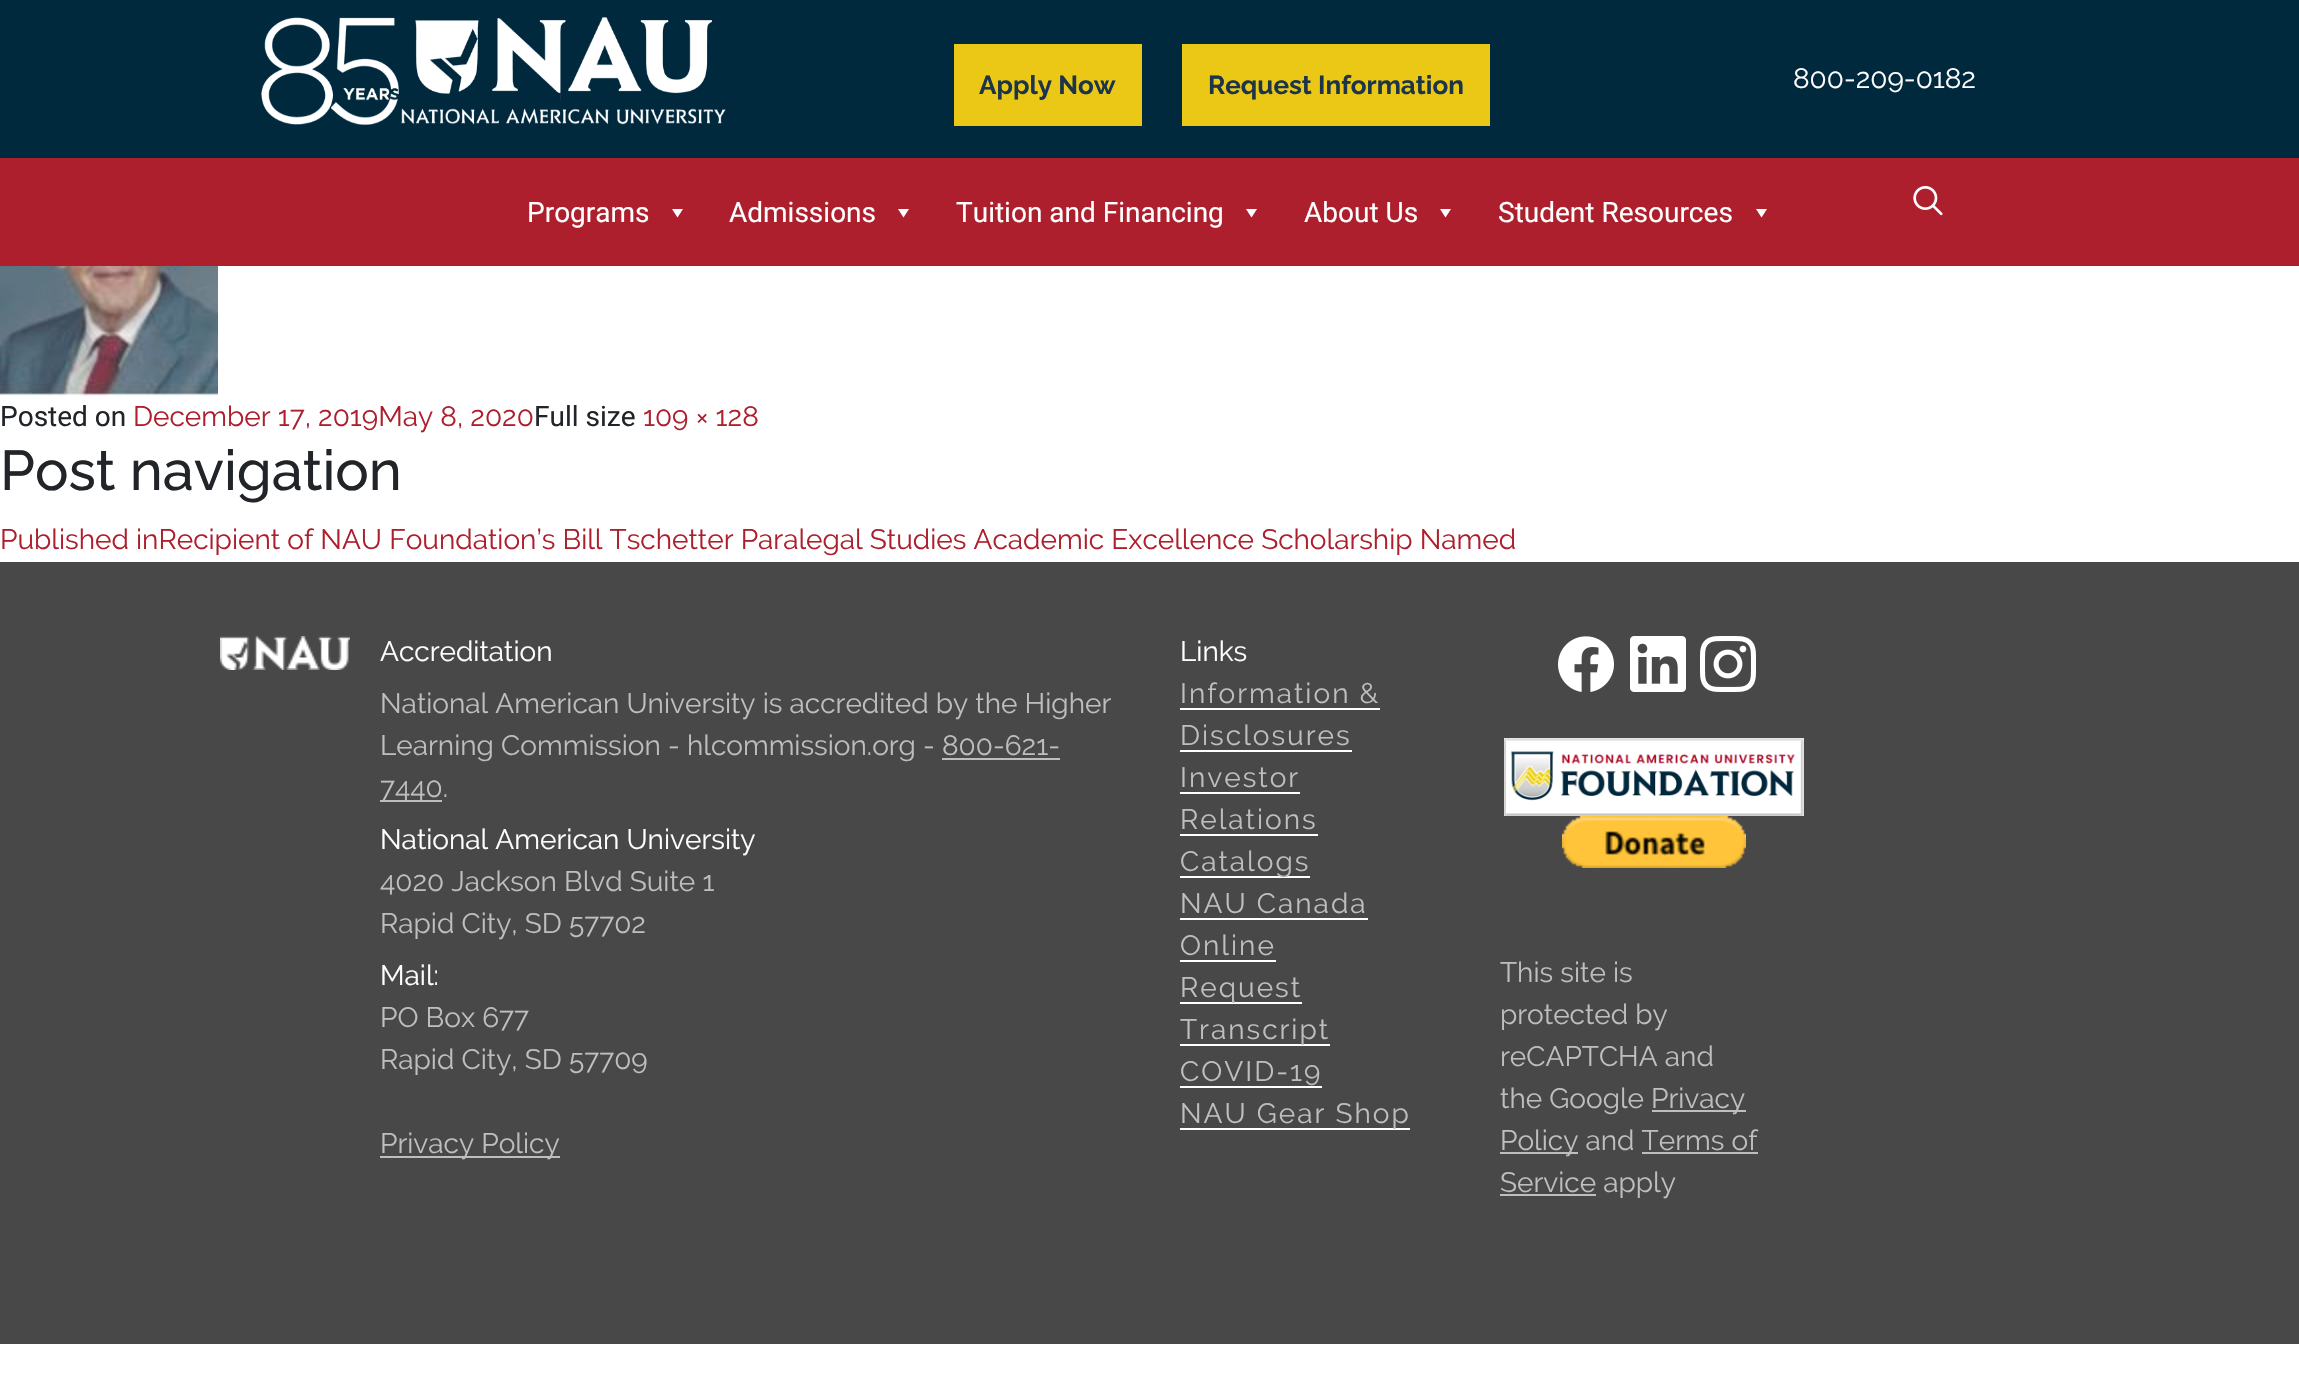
void draw(SkCanvas* canvas) {
    SkPaint paint;
    paint.setAntiAlias(true);
    auto face = [&](const char* family, int weight, float size, bool italic = false) {
        SkFontStyle style(weight, SkFontStyle::kNormal_Width,
            italic ? SkFontStyle::kItalic_Slant : SkFontStyle::kUpright_Slant);
        SkFont result(fontMgr->matchFamilyStyle(family, style), size);
        result.setSubpixel(true);
        return result;
    };
    auto write = [&](const char* s, float x, float y, const SkFont& font, SkColor color) {
        SkPaint ink(SkColor4f::FromColor(color));
        ink.setAntiAlias(true);
        canvas->drawString(s, x, y, font, ink);
    };
    auto writeSpaced = [&](const char* s, float x, float y, const SkFont& font, const SkPaint& ink, float letter, float word) {
        std::vector<SkGlyphID> glyphs(font.countText(s, strlen(s), SkTextEncoding::kUTF8));
        std::vector<float> xs(glyphs.size());
        font.textToGlyphs(s, strlen(s), SkTextEncoding::kUTF8, glyphs);
        font.getXPos(glyphs, xs, x);
        float extra = 0;
        for (size_t i = 0; i < glyphs.size(); i++) {
            xs[i] += extra;
            extra += letter + word * (glyphs[i] == font.unicharToGlyph(' '));
        }
        canvas->drawTextBlob(SkTextBlob::MakeFromPosHGlyphs(glyphs, xs, y, font), 0, 0, ink);
    };
    auto block = [&](float x, float y, float w, float h, SkColor color) {
        SkPaint ink(SkColor4f::FromColor(color));
        ink.setAntiAlias(true);
        canvas->drawRect(SkRect::MakeXYWH(x, y, w, h), ink);
    };
    auto paste = [&](const char* path, float x, float y, float w, float h) {
        auto image = SkImages::DeferredFromEncodedData(SkData::MakeFromFileName(path));
        canvas->drawImageRect(image, SkRect::MakeXYWH(x, y, w, h), SkSamplingOptions());
    };
    canvas->clear(SK_ColorWHITE);
    block(0, 0, 2299, 158, SkColorSetRGB(0, 41, 62));
    paste("pic1.png", 261, 17, 465, 108);
    block(954, 44, 188, 82, SkColorSetRGB(235, 200, 21));
    auto kFont1 = face("Raleway", 700, 26);
    write("Apply Now", 979, 94, kFont1, SkColorSetRGB(29, 53, 73));
    block(1182, 44, 308, 82, SkColorSetRGB(235, 200, 21));
    write("Request Information", 1208, 94, kFont1, SkColorSetRGB(29, 53, 73));
    auto kFont2 = face("Raleway", 400, 28);
    write("800-209-0182", 1793, 88, kFont2, SK_ColorWHITE);
    block(0, 158, 2299, 108, SkColorSetRGB(173, 31, 45));
    auto kFont3 = face("Roboto", 400, 28);
    write("Programs", 527, 222, kFont3, SK_ColorWHITE);
    paint.setColor(SK_ColorWHITE);
    canvas->drawPath(SkPathBuilder().moveTo(683, 209).lineTo(677.5f, 217.5f).lineTo(672, 209).close().detach(), paint);
    write("Admissions", 729, 222, kFont3, SK_ColorWHITE);
    canvas->drawPath(SkPathBuilder().moveTo(909, 209).lineTo(903.5f, 217.5f).lineTo(898, 209).close().detach(), paint);
    write("Tuition and Financing", 956, 222, kFont3, SK_ColorWHITE);
    canvas->drawPath(SkPathBuilder().moveTo(1257, 209).lineTo(1251.5f, 217.5f).lineTo(1246, 209).close().detach(), paint);
    write("About Us", 1304, 222, kFont3, SK_ColorWHITE);
    canvas->drawPath(SkPathBuilder().moveTo(1451, 209).lineTo(1445.5f, 217.5f).lineTo(1440, 209).close().detach(), paint);
    write("Student Resources", 1498, 222, kFont3, SK_ColorWHITE);
    canvas->drawPath(SkPathBuilder().moveTo(1767, 209).lineTo(1761.5f, 217.5f).lineTo(1756, 209).close().detach(), paint);
    paste("pic2.png", 1913, 186, 30, 30);
    paste("pic3.png", 0, 266, 218, 130);
    write("Posted on", 0, 426, kFont3, SkColorSetRGB(33, 37, 41));
    write("December 17, 2019May 8, 2020", 133, 426, kFont2, SkColorSetRGB(173, 31, 45));
    write("Full size", 534, 426, kFont3, SkColorSetRGB(33, 37, 41));
    write("109 × 128", 643, 426, kFont2, SkColorSetRGB(173, 31, 45));
    auto kFont4 = face("Raleway", 500, 56);
    write("Post navigation", 0, 490, kFont4, SkColorSetRGB(33, 37, 41));
    write("Published inRecipient of NAU Foundation’s Bill Tschetter Paralegal Studies Academic Excellence Scholarship Named", 0, 549, kFont2, SkColorSetRGB(173, 31, 45));
    block(0, 562, 2299, 782, SkColorSetRGB(72, 72, 72));
    paste("pic4.png", 220, 636, 130, 34);
    write("Accreditation", 380, 661, kFont2, SK_ColorWHITE);
    write("National American University is accredited by the Higher", 380, 713, kFont2, SkColorSetRGB(190, 190, 190));
    write("Learning Commission - hlcommission.org - 800-621-", 380, 755, kFont2, SkColorSetRGB(190, 190, 190));
    block(380, 800, 62, 2, SkColorSetRGB(190, 190, 190));
    write("7440.", 380, 797, kFont2, SkColorSetRGB(190, 190, 190));
    block(942, 758, 118, 2, SkColorSetRGB(190, 190, 190));
    write("National American University", 380, 849, kFont2, SK_ColorWHITE);
    write("4020 Jackson Blvd Suite 1", 380, 891, kFont2, SkColorSetRGB(190, 190, 190));
    write("Rapid City, SD 57702", 380, 933, kFont2, SkColorSetRGB(190, 190, 190));
    write("Mail:", 380, 985, kFont2, SK_ColorWHITE);
    write("PO Box 677", 380, 1027, kFont2, SkColorSetRGB(190, 190, 190));
    write("Rapid City, SD 57709", 380, 1069, kFont2, SkColorSetRGB(190, 190, 190));
    block(380, 1156, 180, 2, SkColorSetRGB(190, 190, 190));
    write("Privacy Policy", 380, 1153, kFont2, SkColorSetRGB(190, 190, 190));
    write("Links", 1180, 661, kFont2, SK_ColorWHITE);
    paint.setColor(SkColorSetRGB(190, 190, 190));
    writeSpaced("Information &", 1180, 703, kFont2, paint, 2, 0);
    {
        const SkColor colors[] = {SkColorSetRGB(72, 72, 72), SkColorSetRGB(72, 72, 72), SK_ColorWHITE, SK_ColorWHITE};
        const float stops[] = {0, 0.95f, 0.95f, 1};
        const SkPoint ends[] = {{1280, 678}, {1280, 710}};
        paint.setShader(SkGradientShader::MakeLinear(ends, colors, stops, 4, SkTileMode::kClamp));
        paint.setAlpha(255);
    }
    canvas->drawRect(SkRect::MakeXYWH(1180, 708, 200, 2), paint);
    paint.setShader(nullptr);
    paint.setColor(SkColorSetRGB(190, 190, 190));
    writeSpaced("Disclosures", 1180, 745, kFont2, paint, 2, 0);
    {
        const SkColor colors[] = {SkColorSetRGB(72, 72, 72), SkColorSetRGB(72, 72, 72), SK_ColorWHITE, SK_ColorWHITE};
        const float stops[] = {0, 0.95f, 0.95f, 1};
        const SkPoint ends[] = {{1266, 720}, {1266, 752}};
        paint.setShader(SkGradientShader::MakeLinear(ends, colors, stops, 4, SkTileMode::kClamp));
        paint.setAlpha(255);
    }
    canvas->drawRect(SkRect::MakeXYWH(1180, 750, 172, 2), paint);
    paint.setShader(nullptr);
    paint.setColor(SkColorSetRGB(190, 190, 190));
    writeSpaced("Investor", 1180, 787, kFont2, paint, 2, 0);
    {
        const SkColor colors[] = {SkColorSetRGB(72, 72, 72), SkColorSetRGB(72, 72, 72), SK_ColorWHITE, SK_ColorWHITE};
        const float stops[] = {0, 0.95f, 0.95f, 1};
        const SkPoint ends[] = {{1240, 762}, {1240, 794}};
        paint.setShader(SkGradientShader::MakeLinear(ends, colors, stops, 4, SkTileMode::kClamp));
        paint.setAlpha(255);
    }
    canvas->drawRect(SkRect::MakeXYWH(1180, 792, 120, 2), paint);
    paint.setShader(nullptr);
    paint.setColor(SkColorSetRGB(190, 190, 190));
    writeSpaced("Relations", 1180, 829, kFont2, paint, 2, 0);
    {
        const SkColor colors[] = {SkColorSetRGB(72, 72, 72), SkColorSetRGB(72, 72, 72), SK_ColorWHITE, SK_ColorWHITE};
        const float stops[] = {0, 0.95f, 0.95f, 1};
        const SkPoint ends[] = {{1249, 804}, {1249, 836}};
        paint.setShader(SkGradientShader::MakeLinear(ends, colors, stops, 4, SkTileMode::kClamp));
        paint.setAlpha(255);
    }
    canvas->drawRect(SkRect::MakeXYWH(1180, 834, 138, 2), paint);
    {
        const SkColor colors[] = {SkColorSetRGB(72, 72, 72), SkColorSetRGB(72, 72, 72), SK_ColorWHITE, SK_ColorWHITE};
        const float stops[] = {0, 0.95f, 0.95f, 1};
        const SkPoint ends[] = {{1245, 846}, {1245, 878}};
        paint.setShader(SkGradientShader::MakeLinear(ends, colors, stops, 4, SkTileMode::kClamp));
        paint.setAlpha(255);
    }
    canvas->drawRect(SkRect::MakeXYWH(1180, 876, 130, 2), paint);
    paint.setShader(nullptr);
    paint.setColor(SkColorSetRGB(190, 190, 190));
    writeSpaced("Catalogs", 1180, 871, kFont2, paint, 2, 0);
    writeSpaced("NAU Canada", 1180, 913, kFont2, paint, 2, 0);
    {
        const SkColor colors[] = {SkColorSetRGB(72, 72, 72), SkColorSetRGB(72, 72, 72), SK_ColorWHITE, SK_ColorWHITE};
        const float stops[] = {0, 0.95f, 0.95f, 1};
        const SkPoint ends[] = {{1274, 888}, {1274, 920}};
        paint.setShader(SkGradientShader::MakeLinear(ends, colors, stops, 4, SkTileMode::kClamp));
        paint.setAlpha(255);
    }
    canvas->drawRect(SkRect::MakeXYWH(1180, 918, 188, 2), paint);
    paint.setShader(nullptr);
    paint.setColor(SkColorSetRGB(190, 190, 190));
    writeSpaced("Online", 1180, 955, kFont2, paint, 2, 0);
    {
        const SkColor colors[] = {SkColorSetRGB(72, 72, 72), SkColorSetRGB(72, 72, 72), SK_ColorWHITE, SK_ColorWHITE};
        const float stops[] = {0, 0.95f, 0.95f, 1};
        const SkPoint ends[] = {{1228, 930}, {1228, 962}};
        paint.setShader(SkGradientShader::MakeLinear(ends, colors, stops, 4, SkTileMode::kClamp));
        paint.setAlpha(255);
    }
    canvas->drawRect(SkRect::MakeXYWH(1180, 960, 96, 2), paint);
    {
        const SkColor colors[] = {SkColorSetRGB(72, 72, 72), SkColorSetRGB(72, 72, 72), SK_ColorWHITE, SK_ColorWHITE};
        const float stops[] = {0, 0.95f, 0.95f, 1};
        const SkPoint ends[] = {{1241, 972}, {1241, 1004}};
        paint.setShader(SkGradientShader::MakeLinear(ends, colors, stops, 4, SkTileMode::kClamp));
        paint.setAlpha(255);
    }
    canvas->drawRect(SkRect::MakeXYWH(1180, 1002, 122, 2), paint);
    paint.setShader(nullptr);
    paint.setColor(SkColorSetRGB(190, 190, 190));
    writeSpaced("Request", 1180, 997, kFont2, paint, 2, 0);
    {
        const SkColor colors[] = {SkColorSetRGB(72, 72, 72), SkColorSetRGB(72, 72, 72), SK_ColorWHITE, SK_ColorWHITE};
        const float stops[] = {0, 0.95f, 0.95f, 1};
        const SkPoint ends[] = {{1255, 1014}, {1255, 1046}};
        paint.setShader(SkGradientShader::MakeLinear(ends, colors, stops, 4, SkTileMode::kClamp));
        paint.setAlpha(255);
    }
    canvas->drawRect(SkRect::MakeXYWH(1180, 1044, 150, 2), paint);
    paint.setShader(nullptr);
    paint.setColor(SkColorSetRGB(190, 190, 190));
    writeSpaced("Transcript", 1180, 1039, kFont2, paint, 2, 0);
    writeSpaced("COVID-19", 1180, 1081, kFont2, paint, 2, 0);
    {
        const SkColor colors[] = {SkColorSetRGB(72, 72, 72), SkColorSetRGB(72, 72, 72), SK_ColorWHITE, SK_ColorWHITE};
        const float stops[] = {0, 0.95f, 0.95f, 1};
        const SkPoint ends[] = {{1251, 1056}, {1251, 1088}};
        paint.setShader(SkGradientShader::MakeLinear(ends, colors, stops, 4, SkTileMode::kClamp));
        paint.setAlpha(255);
    }
    canvas->drawRect(SkRect::MakeXYWH(1180, 1086, 142, 2), paint);
    {
        const SkColor colors[] = {SkColorSetRGB(72, 72, 72), SkColorSetRGB(72, 72, 72), SK_ColorWHITE, SK_ColorWHITE};
        const float stops[] = {0, 0.95f, 0.95f, 1};
        const SkPoint ends[] = {{1295, 1098}, {1295, 1130}};
        paint.setShader(SkGradientShader::MakeLinear(ends, colors, stops, 4, SkTileMode::kClamp));
        paint.setAlpha(255);
    }
    canvas->drawRect(SkRect::MakeXYWH(1180, 1128, 230, 2), paint);
    paint.setShader(nullptr);
    paint.setColor(SkColorSetRGB(190, 190, 190));
    writeSpaced("NAU Gear Shop", 1180, 1123, kFont2, paint, 2, 0);
    paste("pic5.png", 1558, 636, 56, 56);
    paste("pic6.png", 1630, 636, 56, 56);
    paste("pic7.png", 1700, 636, 56, 56);
    paste("pic8.png", 1504, 738, 300, 78);
    paste("pic9.png", 1562, 816, 184, 52);
    write("This site is", 1500, 982, kFont2, SkColorSetRGB(190, 190, 190));
    write("protected by", 1500, 1024, kFont2, SkColorSetRGB(190, 190, 190));
    write("reCAPTCHA and", 1500, 1066, kFont2, SkColorSetRGB(190, 190, 190));
    write("the Google", 1500, 1108, kFont2, SkColorSetRGB(190, 190, 190));
    block(1652, 1110, 94, 2, SkColorSetRGB(190, 190, 190));
    write("Privacy", 1651, 1108, kFont2, SkColorSetRGB(190, 190, 190));
    block(1500, 1152, 78, 2, SkColorSetRGB(190, 190, 190));
    write("Policy and Terms of", 1500, 1150, kFont2, SkColorSetRGB(190, 190, 190));
    block(1500, 1194, 96, 2, SkColorSetRGB(190, 190, 190));
    write("Service apply", 1500, 1192, kFont2, SkColorSetRGB(190, 190, 190));
    block(1642, 1152, 116, 2, SkColorSetRGB(190, 190, 190));
}
